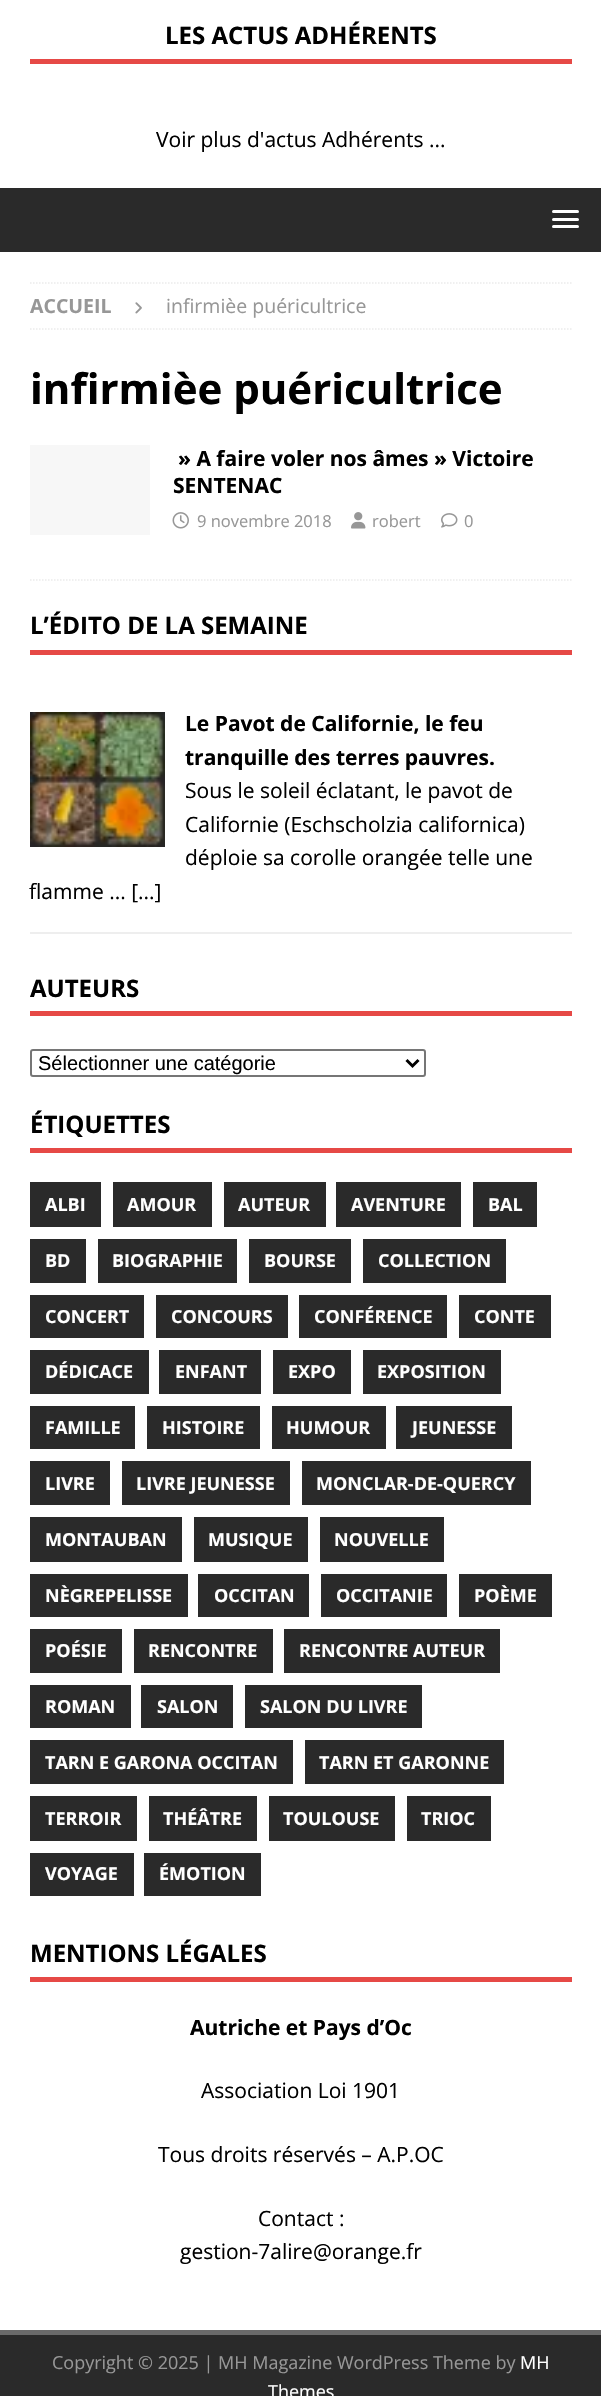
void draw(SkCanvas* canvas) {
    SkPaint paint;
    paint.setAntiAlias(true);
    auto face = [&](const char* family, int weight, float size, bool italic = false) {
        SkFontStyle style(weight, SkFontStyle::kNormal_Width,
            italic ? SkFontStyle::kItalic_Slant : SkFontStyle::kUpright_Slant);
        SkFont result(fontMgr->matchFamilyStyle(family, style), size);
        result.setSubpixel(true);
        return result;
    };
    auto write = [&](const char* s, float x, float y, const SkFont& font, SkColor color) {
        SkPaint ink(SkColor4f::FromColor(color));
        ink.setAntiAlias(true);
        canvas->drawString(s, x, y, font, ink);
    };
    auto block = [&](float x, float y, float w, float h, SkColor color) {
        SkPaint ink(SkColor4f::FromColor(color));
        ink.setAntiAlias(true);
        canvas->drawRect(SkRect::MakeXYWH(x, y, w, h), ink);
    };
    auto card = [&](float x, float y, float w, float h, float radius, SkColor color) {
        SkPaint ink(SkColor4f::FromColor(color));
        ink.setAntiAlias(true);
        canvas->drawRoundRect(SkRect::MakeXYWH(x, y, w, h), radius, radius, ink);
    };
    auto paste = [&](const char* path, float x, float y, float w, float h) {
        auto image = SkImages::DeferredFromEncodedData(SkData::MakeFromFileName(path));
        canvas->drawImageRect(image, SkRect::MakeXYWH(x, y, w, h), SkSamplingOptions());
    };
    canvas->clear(SK_ColorWHITE);
    block(30, 59, 542, 5, SkColorSetRGB(230, 73, 70));
    auto kFont1 = face("Open Sans", 700, 24);
    write("LES ACTUS ADHÉRENTS", 165, 44, kFont1, SK_ColorBLACK);
    auto kFont2 = face("Open Sans", 400, 21);
    write("Voir plus d'actus Adhérents ...", 156, 147, kFont2, SK_ColorBLACK);
    block(0, 188, 601, 64, SkColorSetRGB(42, 42, 42));
    card(552, 210, 27, 3, 1.5f, SK_ColorWHITE);
    card(552, 218, 27, 3, 1.5f, SK_ColorWHITE);
    card(552, 225, 27, 3, 1.5f, SK_ColorWHITE);
    paint.setStyle(SkPaint::kStroke_Style);
    paint.setStrokeWidth(1.5f);
    paint.setColor(SkColorSetRGB(235, 235, 235));
    paint.setPathEffect(SkDashPathEffect::Make({{1.5f, 1.5f}}, 0));
    canvas->drawPath(SkPathBuilder().moveTo(30, 283).lineTo(571.5f, 283).detach(), paint);
    paint.setPathEffect(nullptr);
    paint.setPathEffect(SkDashPathEffect::Make({{1.5f, 1.5f}}, 0));
    canvas->drawPath(SkPathBuilder().moveTo(30, 329).lineTo(571.5f, 329).detach(), paint);
    paint.setPathEffect(nullptr);
    auto kFont3 = face("Open Sans", 700, 19.5f);
    write("ACCUEIL", 30, 313, kFont3, SkColorSetRGB(151, 151, 151));
    paste("pic1.png", 135, 302, 7, 12);
    auto kFont4 = face("Open Sans", 400, 19.5f);
    write("infirmièe puéricultrice", 166, 313, kFont4, SkColorSetRGB(151, 151, 151));
    auto kFont5 = face("Open Sans", 700, 42);
    write("infirmièe puéricultrice", 30, 404, kFont5, SK_ColorBLACK);
    paint.setPathEffect(SkDashPathEffect::Make({{1.5f, 1.5f}}, 0));
    canvas->drawPath(SkPathBuilder().moveTo(30, 580).lineTo(571.5f, 580).detach(), paint);
    paint.setPathEffect(nullptr);
    block(30, 445, 120, 90, SkColorSetRGB(247, 247, 247));
    auto kFont6 = face("Open Sans", 700, 21);
    write("» A faire voler nos âmes » Victoire", 178, 466, kFont6, SK_ColorBLACK);
    write("SENTENAC", 173, 493, kFont6, SK_ColorBLACK);
    paste("pic2.png", 172, 512, 17, 17);
    auto kFont7 = face("Open Sans", 400, 16.5f);
    write("9 novembre 2018", 197, 527, kFont7, SkColorSetRGB(151, 151, 151));
    paste("pic3.png", 351, 512, 15, 17);
    write("robert", 372, 527, kFont7, SkColorSetRGB(151, 151, 151));
    paste("pic4.png", 441, 513, 17, 15);
    write("0", 464, 527, kFont7, SkColorSetRGB(151, 151, 151));
    block(30, 650, 542, 5, SkColorSetRGB(230, 73, 70));
    write("L’ÉDITO DE LA SEMAINE", 30, 634, kFont1, SK_ColorBLACK);
    block(30, 932, 542, 2, SkColorSetRGB(238, 238, 238));
    paste("pic5.png", 30, 712, 135, 135);
    write("Le Pavot de Californie, le feu", 185, 731, kFont6, SK_ColorBLACK);
    write("tranquille des terres pauvres.", 185, 765, kFont6, SK_ColorBLACK);
    write("Sous le soleil éclatant, le pavot de", 185, 798, kFont2, SK_ColorBLACK);
    write("Californie (Eschscholzia californica)", 185, 832, kFont2, SK_ColorBLACK);
    write("déploie sa corolle orangée telle une", 185, 865, kFont2, SK_ColorBLACK);
    write("flamme ... [...]", 29, 899, kFont2, SK_ColorBLACK);
    block(30, 1011, 542, 5, SkColorSetRGB(230, 73, 70));
    write("AUTEURS", 30, 997, kFont1, SK_ColorBLACK);
    paint.setStrokeWidth(2);
    paint.setColor(SkColorSetRGB(118, 118, 118));
    canvas->drawRoundRect(SkRect::MakeXYWH(31, 1050, 394, 26), 2, 2, paint);
    paint.setStrokeWidth(3);
    paint.setColor(SK_ColorBLACK);
    canvas->drawPath(SkPathBuilder().moveTo(406.5f, 1060).lineTo(412.5f, 1066).lineTo(418.5f, 1060).detach(), paint);
    auto kFont8 = face("Liberation Sans", 400, 20);
    write("Sélectionner une catégorie", 38, 1070, kFont8, SK_ColorBLACK);
    block(30, 1148, 542, 5, SkColorSetRGB(230, 73, 70));
    write("ÉTIQUETTES", 30, 1133, kFont1, SK_ColorBLACK);
    block(30, 1182, 71, 45, SkColorSetRGB(42, 42, 42));
    auto kFont9 = face("Open Sans", 700, 18);
    write("ALBI", 45, 1211, kFont9, SK_ColorWHITE);
    block(113, 1182, 99, 45, SkColorSetRGB(42, 42, 42));
    write("AMOUR", 127, 1211, kFont9, SK_ColorWHITE);
    block(224, 1182, 102, 45, SkColorSetRGB(42, 42, 42));
    write("AUTEUR", 238, 1211, kFont9, SK_ColorWHITE);
    block(336, 1182, 125, 45, SkColorSetRGB(42, 42, 42));
    write("AVENTURE", 351, 1211, kFont9, SK_ColorWHITE);
    block(473, 1182, 64, 45, SkColorSetRGB(42, 42, 42));
    write("BAL", 488, 1211, kFont9, SK_ColorWHITE);
    block(30, 1239, 56, 44, SkColorSetRGB(42, 42, 42));
    write("BD", 45, 1267, kFont9, SK_ColorWHITE);
    block(98, 1239, 139, 44, SkColorSetRGB(42, 42, 42));
    write("BIOGRAPHIE", 112, 1267, kFont9, SK_ColorWHITE);
    block(249, 1239, 102, 44, SkColorSetRGB(42, 42, 42));
    write("BOURSE", 264, 1267, kFont9, SK_ColorWHITE);
    block(363, 1239, 143, 44, SkColorSetRGB(42, 42, 42));
    write("COLLECTION", 378, 1267, kFont9, SK_ColorWHITE);
    block(30, 1295, 114, 43, SkColorSetRGB(42, 42, 42));
    write("CONCERT", 45, 1323, kFont9, SK_ColorWHITE);
    block(156, 1295, 132, 43, SkColorSetRGB(42, 42, 42));
    write("CONCOURS", 171, 1323, kFont9, SK_ColorWHITE);
    block(299, 1295, 148, 43, SkColorSetRGB(42, 42, 42));
    write("CONFÉRENCE", 314, 1323, kFont9, SK_ColorWHITE);
    block(459, 1295, 92, 43, SkColorSetRGB(42, 42, 42));
    write("CONTE", 474, 1323, kFont9, SK_ColorWHITE);
    block(30, 1350, 119, 44, SkColorSetRGB(42, 42, 42));
    write("DÉDICACE", 45, 1378, kFont9, SK_ColorWHITE);
    block(159, 1350, 102, 44, SkColorSetRGB(42, 42, 42));
    write("ENFANT", 175, 1378, kFont9, SK_ColorWHITE);
    block(273, 1350, 78, 44, SkColorSetRGB(42, 42, 42));
    write("EXPO", 288, 1378, kFont9, SK_ColorWHITE);
    block(363, 1350, 138, 44, SkColorSetRGB(42, 42, 42));
    write("EXPOSITION", 377, 1378, kFont9, SK_ColorWHITE);
    block(30, 1406, 105, 43, SkColorSetRGB(42, 42, 42));
    write("FAMILLE", 45, 1434, kFont9, SK_ColorWHITE);
    block(147, 1406, 113, 43, SkColorSetRGB(42, 42, 42));
    write("HISTOIRE", 162, 1434, kFont9, SK_ColorWHITE);
    block(272, 1406, 114, 43, SkColorSetRGB(42, 42, 42));
    write("HUMOUR", 286, 1434, kFont9, SK_ColorWHITE);
    block(396, 1406, 116, 43, SkColorSetRGB(42, 42, 42));
    write("JEUNESSE", 412, 1434, kFont9, SK_ColorWHITE);
    block(30, 1461, 80, 44, SkColorSetRGB(42, 42, 42));
    write("LIVRE", 45, 1490, kFont9, SK_ColorWHITE);
    block(122, 1461, 168, 44, SkColorSetRGB(42, 42, 42));
    write("LIVRE JEUNESSE", 136, 1490, kFont9, SK_ColorWHITE);
    block(302, 1461, 229, 44, SkColorSetRGB(42, 42, 42));
    write("MONCLAR-DE-QUERCY", 316, 1490, kFont9, SK_ColorWHITE);
    block(30, 1517, 152, 45, SkColorSetRGB(42, 42, 42));
    write("MONTAUBAN", 45, 1546, kFont9, SK_ColorWHITE);
    block(194, 1517, 114, 45, SkColorSetRGB(42, 42, 42));
    write("MUSIQUE", 208, 1546, kFont9, SK_ColorWHITE);
    block(320, 1517, 124, 45, SkColorSetRGB(42, 42, 42));
    write("NOUVELLE", 334, 1546, kFont9, SK_ColorWHITE);
    block(30, 1574, 158, 43, SkColorSetRGB(42, 42, 42));
    write("NÈGREPELISSE", 45, 1602, kFont9, SK_ColorWHITE);
    block(198, 1574, 111, 43, SkColorSetRGB(42, 42, 42));
    write("OCCITAN", 214, 1602, kFont9, SK_ColorWHITE);
    block(321, 1574, 126, 43, SkColorSetRGB(42, 42, 42));
    write("OCCITANIE", 336, 1602, kFont9, SK_ColorWHITE);
    block(459, 1574, 93, 43, SkColorSetRGB(42, 42, 42));
    write("POÈME", 474, 1602, kFont9, SK_ColorWHITE);
    block(30, 1629, 92, 44, SkColorSetRGB(42, 42, 42));
    write("POÉSIE", 45, 1657, kFont9, SK_ColorWHITE);
    block(134, 1629, 139, 44, SkColorSetRGB(42, 42, 42));
    write("RENCONTRE", 148, 1657, kFont9, SK_ColorWHITE);
    block(284, 1629, 216, 44, SkColorSetRGB(42, 42, 42));
    write("RENCONTRE AUTEUR", 299, 1657, kFont9, SK_ColorWHITE);
    block(30, 1685, 101, 43, SkColorSetRGB(42, 42, 42));
    write("ROMAN", 45, 1713, kFont9, SK_ColorWHITE);
    block(141, 1685, 92, 43, SkColorSetRGB(42, 42, 42));
    write("SALON", 157, 1713, kFont9, SK_ColorWHITE);
    block(245, 1685, 177, 43, SkColorSetRGB(42, 42, 42));
    write("SALON DU LIVRE", 260, 1713, kFont9, SK_ColorWHITE);
    block(30, 1740, 263, 44, SkColorSetRGB(42, 42, 42));
    write("TARN E GARONA OCCITAN", 45, 1769, kFont9, SK_ColorWHITE);
    block(305, 1740, 199, 44, SkColorSetRGB(42, 42, 42));
    write("TARN ET GARONNE", 319, 1769, kFont9, SK_ColorWHITE);
    block(30, 1796, 107, 45, SkColorSetRGB(42, 42, 42));
    write("TERROIR", 45, 1825, kFont9, SK_ColorWHITE);
    block(149, 1796, 108, 45, SkColorSetRGB(42, 42, 42));
    write("THÉÂTRE", 163, 1825, kFont9, SK_ColorWHITE);
    block(269, 1796, 126, 45, SkColorSetRGB(42, 42, 42));
    write("TOULOUSE", 283, 1825, kFont9, SK_ColorWHITE);
    block(407, 1796, 84, 45, SkColorSetRGB(42, 42, 42));
    write("TRIOC", 421, 1825, kFont9, SK_ColorWHITE);
    block(30, 1853, 104, 43, SkColorSetRGB(42, 42, 42));
    write("VOYAGE", 45, 1880, kFont9, SK_ColorWHITE);
    block(144, 1853, 117, 43, SkColorSetRGB(42, 42, 42));
    write("ÉMOTION", 159, 1880, kFont9, SK_ColorWHITE);
    block(30, 1977, 542, 5, SkColorSetRGB(230, 73, 70));
    write("MENTIONS LÉGALES", 30, 1962, kFont1, SK_ColorBLACK);
    write("Autriche et Pays d’Oc", 190, 2035, kFont6, SK_ColorBLACK);
    write("Association Loi 1901", 201, 2098, kFont2, SK_ColorBLACK);
    write("Tous droits réservés – A.P.OC", 158, 2162, kFont2, SK_ColorBLACK);
    write("Contact :", 258, 2226, kFont2, SK_ColorBLACK);
    write("gestion-7alire@orange.fr", 180, 2259, kFont2, SK_ColorBLACK);
    block(0, 2335, 601, 61, SkColorSetRGB(42, 42, 42));
    block(0, 2330, 601, 5, SkColorSetRGB(106, 106, 106));
    auto kFont10 = face("Open Sans", 400, 18);
    write("Copyright © 2025 | MH Magazine WordPress Theme by", 52, 2369, kFont10, SkColorSetRGB(151, 151, 151));
    write("MH", 520, 2369, kFont10, SK_ColorWHITE);
    write("Themes", 268, 2398, kFont10, SK_ColorWHITE);
}
